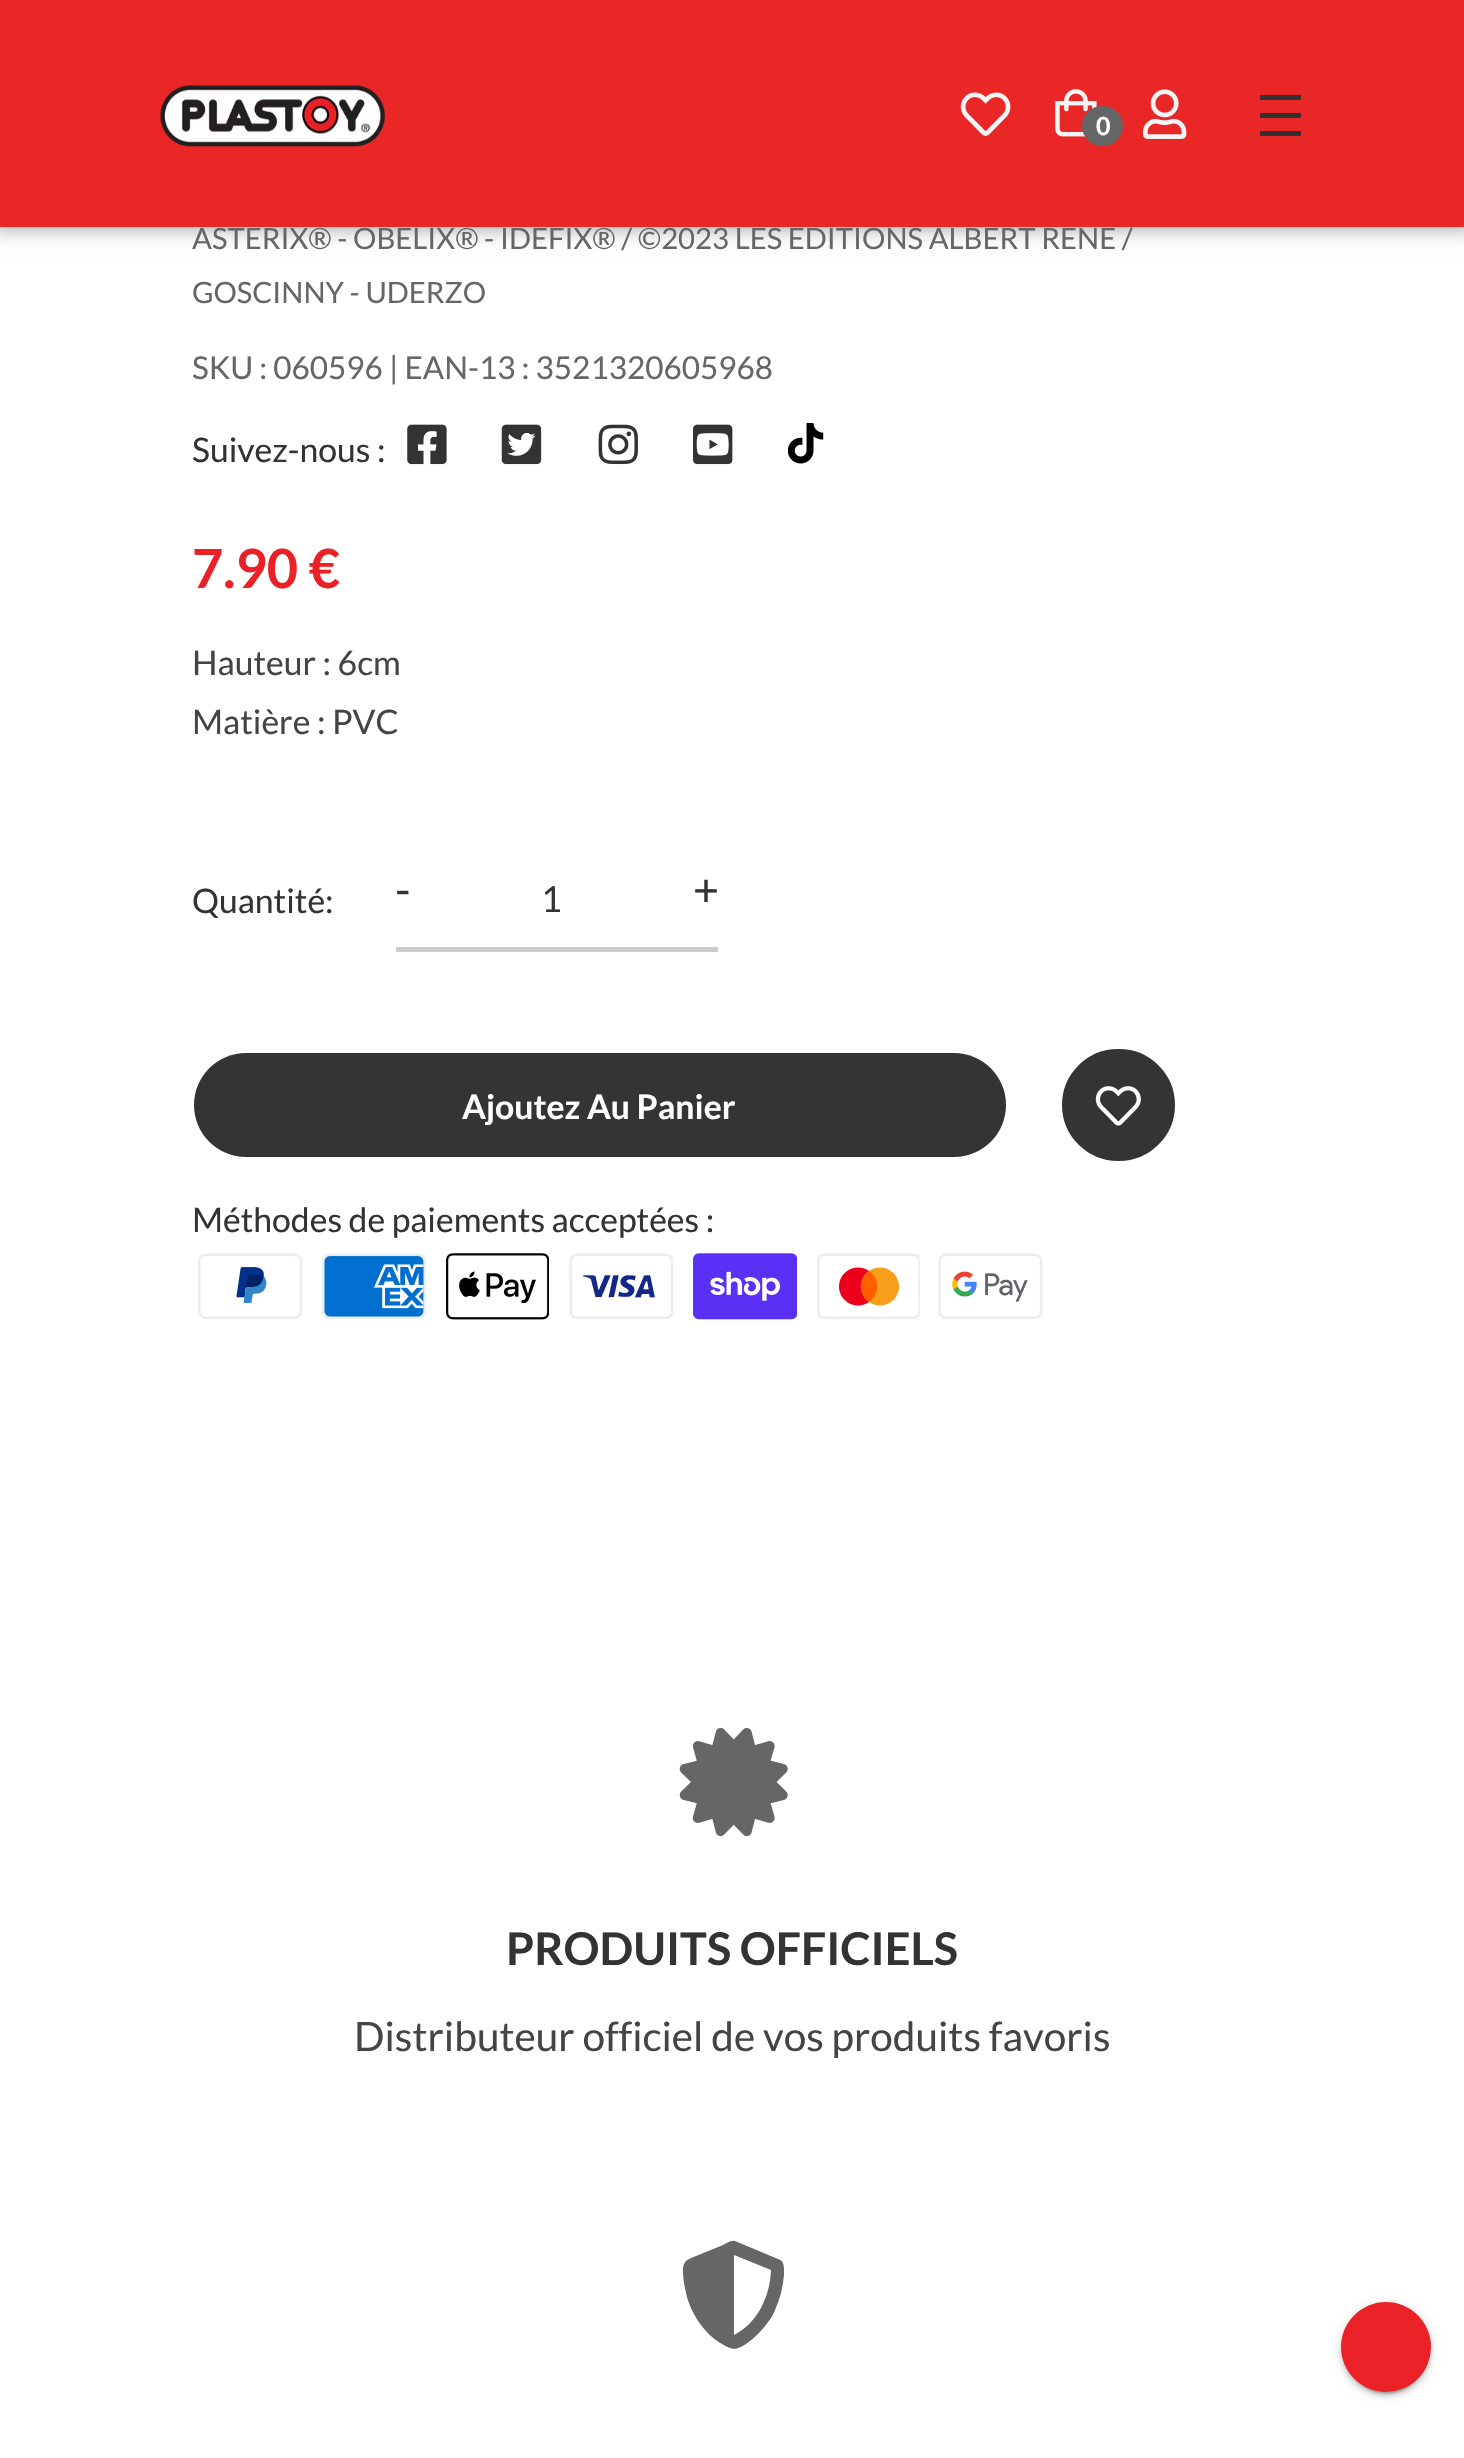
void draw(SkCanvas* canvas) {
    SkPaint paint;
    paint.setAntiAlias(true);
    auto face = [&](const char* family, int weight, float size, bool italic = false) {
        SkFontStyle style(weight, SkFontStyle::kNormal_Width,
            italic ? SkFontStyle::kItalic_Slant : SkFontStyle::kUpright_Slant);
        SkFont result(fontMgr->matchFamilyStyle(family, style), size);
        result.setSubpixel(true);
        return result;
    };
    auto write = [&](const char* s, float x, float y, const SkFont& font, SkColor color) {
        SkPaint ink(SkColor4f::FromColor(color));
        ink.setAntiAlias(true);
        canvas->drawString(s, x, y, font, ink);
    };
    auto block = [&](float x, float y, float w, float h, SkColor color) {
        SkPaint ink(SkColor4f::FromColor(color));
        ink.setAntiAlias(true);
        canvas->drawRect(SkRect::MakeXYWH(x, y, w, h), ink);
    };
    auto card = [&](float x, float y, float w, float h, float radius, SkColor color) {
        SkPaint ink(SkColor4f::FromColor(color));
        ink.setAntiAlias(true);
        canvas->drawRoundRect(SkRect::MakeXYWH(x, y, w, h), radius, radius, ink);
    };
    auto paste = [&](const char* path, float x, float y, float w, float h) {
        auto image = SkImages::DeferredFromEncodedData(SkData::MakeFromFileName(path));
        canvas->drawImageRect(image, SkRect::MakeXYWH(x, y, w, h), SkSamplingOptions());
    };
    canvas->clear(SK_ColorWHITE);
    paint.setColor(SkColorSetARGB(128, 0, 0, 0));
    paint.setMaskFilter(SkMaskFilter::MakeBlur(kNormal_SkBlurStyle, 11));
    canvas->drawRect(SkRect::MakeXYWH(-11, -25, 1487, 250), paint);
    paint.setMaskFilter(nullptr);
    auto kFont1 = face("Lato", 400, 29.25f);
    write("ASTERIX® - OBELIX® - IDEFIX® / ©2023 LES ÉDITIONS ALBERT RENÉ /", 192, 249, kFont1, SkColorSetRGB(102, 102, 102));
    block(0, 0, 1464, 227, SkColorSetRGB(234, 39, 39));
    paste("pic1.png", 160, 85, 225, 62);
    paste("pic2.png", 960, 92, 51, 44);
    paste("pic3.png", 1055, 89, 42, 48);
    card(1082, 106, 41, 40, 20, SkColorSetRGB(102, 102, 102));
    auto kFont2 = face("Lato", 700, 25);
    write("0", 1096, 135, kFont2, SK_ColorWHITE);
    paste("pic4.png", 1143, 89, 44, 50);
    block(1260, 113, 41, 5, SkColorSetRGB(50, 50, 50));
    block(1260, 95, 41, 5, SkColorSetRGB(50, 50, 50));
    block(1260, 131, 41, 5, SkColorSetRGB(50, 50, 50));
    write("GOSCINNY - UDERZO", 192, 303, kFont1, SkColorSetRGB(102, 102, 102));
    auto kFont3 = face("Lato", 400, 31.5f);
    write("SKU : 060596 | EAN-13 : 3521320605968", 192, 379, kFont3, SkColorSetRGB(102, 102, 102));
    auto kFont4 = face("Lato", 400, 33.75f);
    write("Suivez-nous :", 192, 462, kFont4, SkColorSetRGB(51, 51, 51));
    paste("pic5.png", 407, 424, 40, 41);
    paste("pic6.png", 501, 424, 41, 41);
    paste("pic7.png", 598, 424, 40, 41);
    paste("pic8.png", 693, 424, 40, 41);
    paste("pic9.png", 788, 423, 36, 41);
    auto kFont5 = face("Lato", 700, 54);
    write("7.90 €", 192, 588, kFont5, SkColorSetRGB(234, 34, 39));
    write("Hauteur : 6 cm", 192, 675, kFont4, SkColorSetRGB(68, 68, 68));
    write("Matière : PVC", 192, 734, kFont4, SkColorSetRGB(68, 68, 68));
    write("Quantité:", 192, 913, kFont4, SkColorSetRGB(51, 51, 51));
    block(396, 947, 322, 5, SkColorSetRGB(204, 204, 204));
    auto kFont6 = face("Lato", 400, 45);
    write("-", 395, 906, kFont6, SkColorSetRGB(51, 51, 51));
    auto kFont7 = face("Lato", 400, 36);
    write("1", 541, 912, kFont7, SkColorSetRGB(51, 51, 51));
    write("+", 693, 906, kFont6, SkColorSetRGB(51, 51, 51));
    card(194, 1053, 812, 104, 52, SkColorSetRGB(52, 52, 52));
    auto kFont8 = face("Lato", 700, 33.75f);
    write("Ajoutez Au Panier", 462, 1119, kFont8, SK_ColorWHITE);
    paint.setColor(SkColorSetRGB(52, 52, 52));
    canvas->drawRoundRect(SkRect::MakeXYWH(1070, 1057, 97, 96), 48, 48, paint);
    paint.setStyle(SkPaint::kStroke_Style);
    paint.setStrokeWidth(16);
    canvas->drawRoundRect(SkRect::MakeXYWH(1070, 1057, 97, 96), 48, 48, paint);
    paste("pic10.png", 1095, 1086, 46, 40);
    write("Méthodes de paiements acceptées :", 192, 1232, kFont4, SkColorSetRGB(51, 51, 51));
    paste("pic11.png", 198, 1253, 105, 66);
    paste("pic12.png", 322, 1253, 104, 66);
    paste("pic13.png", 446, 1253, 103, 67);
    paste("pic14.png", 569, 1253, 104, 66);
    paste("pic15.png", 693, 1253, 104, 67);
    paste("pic16.png", 817, 1253, 103, 66);
    paste("pic17.png", 938, 1253, 105, 66);
    paste("pic18.png", 679, 1727, 109, 110);
    auto kFont9 = face("Lato", 700, 45);
    write("PRODUITS OFFICIELS", 506, 1965, kFont9, SkColorSetRGB(51, 51, 51));
    auto kFont10 = face("Lato", 400, 40.5f);
    write("Distributeur officiel de vos produits favoris", 354, 2051, kFont10, SkColorSetRGB(68, 68, 68));
    paint.setStyle(SkPaint::kFill_Style);
    paint.setColor(SkColorSetRGB(102, 102, 102));
    canvas->drawPath(SkPathBuilder().moveTo(778, 2259).cubicTo(785, 2261, 784, 2268, 784, 2275).cubicTo(783, 2287, 780, 2299, 775, 2310).cubicTo(773, 2316, 769, 2321, 765, 2326).cubicTo(759, 2334, 740, 2353, 730, 2348).cubicTo(708, 2339, 693, 2318, 687, 2297).cubicTo(685, 2289, 683, 2280, 683, 2272).cubicTo(683, 2261, 686, 2260, 696, 2256).lineTo(723, 2245).cubicTo(727, 2243, 731, 2240, 735, 2241).close().moveTo(734, 2335).cubicTo(758, 2323, 770, 2296, 771, 2270).lineTo(734, 2255).close().detach(), paint);
    paint.setColor(SkColorSetARGB(51, 0, 0, 0));
    paint.setMaskFilter(SkMaskFilter::MakeBlur(kNormal_SkBlurStyle, 1));
    canvas->drawRoundRect(SkRect::MakeXYWH(1346, 2313, 81, 81), 40.5f, 40.5f, paint);
    paint.setMaskFilter(nullptr);
    paint.setColor(SkColorSetARGB(31, 0, 0, 0));
    paint.setMaskFilter(SkMaskFilter::MakeBlur(kNormal_SkBlurStyle, 5.5f));
    canvas->drawRoundRect(SkRect::MakeXYWH(1341, 2304, 90, 90), 45, 45, paint);
    paint.setMaskFilter(nullptr);
    paint.setColor(SkColorSetARGB(36, 0, 0, 0));
    paint.setMaskFilter(SkMaskFilter::MakeBlur(kNormal_SkBlurStyle, 2));
    canvas->drawRoundRect(SkRect::MakeXYWH(1341, 2306, 90, 90), 45, 45, paint);
    paint.setMaskFilter(nullptr);
    paint.setColor(SkColorSetRGB(234, 34, 39));
    canvas->drawCircle(1386, 2347, 45, paint);
}
